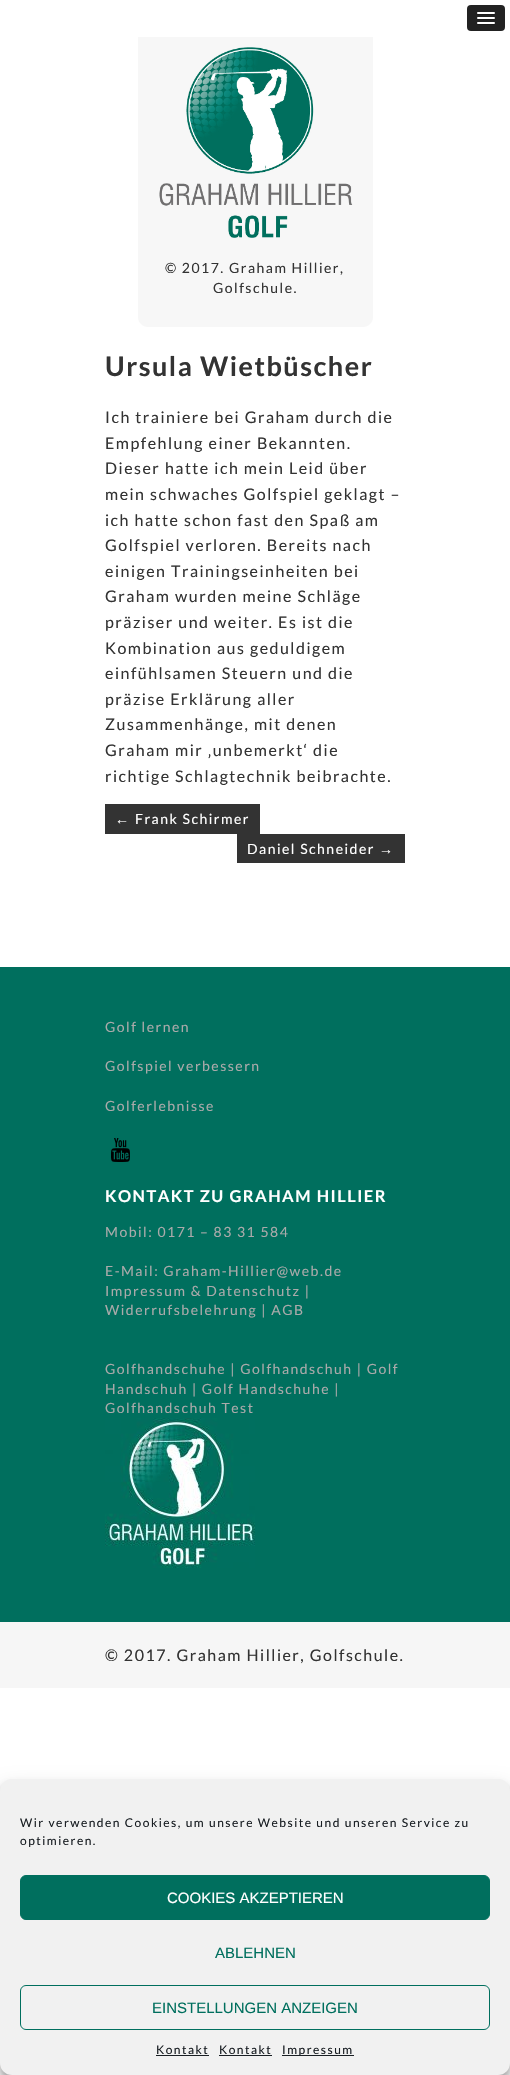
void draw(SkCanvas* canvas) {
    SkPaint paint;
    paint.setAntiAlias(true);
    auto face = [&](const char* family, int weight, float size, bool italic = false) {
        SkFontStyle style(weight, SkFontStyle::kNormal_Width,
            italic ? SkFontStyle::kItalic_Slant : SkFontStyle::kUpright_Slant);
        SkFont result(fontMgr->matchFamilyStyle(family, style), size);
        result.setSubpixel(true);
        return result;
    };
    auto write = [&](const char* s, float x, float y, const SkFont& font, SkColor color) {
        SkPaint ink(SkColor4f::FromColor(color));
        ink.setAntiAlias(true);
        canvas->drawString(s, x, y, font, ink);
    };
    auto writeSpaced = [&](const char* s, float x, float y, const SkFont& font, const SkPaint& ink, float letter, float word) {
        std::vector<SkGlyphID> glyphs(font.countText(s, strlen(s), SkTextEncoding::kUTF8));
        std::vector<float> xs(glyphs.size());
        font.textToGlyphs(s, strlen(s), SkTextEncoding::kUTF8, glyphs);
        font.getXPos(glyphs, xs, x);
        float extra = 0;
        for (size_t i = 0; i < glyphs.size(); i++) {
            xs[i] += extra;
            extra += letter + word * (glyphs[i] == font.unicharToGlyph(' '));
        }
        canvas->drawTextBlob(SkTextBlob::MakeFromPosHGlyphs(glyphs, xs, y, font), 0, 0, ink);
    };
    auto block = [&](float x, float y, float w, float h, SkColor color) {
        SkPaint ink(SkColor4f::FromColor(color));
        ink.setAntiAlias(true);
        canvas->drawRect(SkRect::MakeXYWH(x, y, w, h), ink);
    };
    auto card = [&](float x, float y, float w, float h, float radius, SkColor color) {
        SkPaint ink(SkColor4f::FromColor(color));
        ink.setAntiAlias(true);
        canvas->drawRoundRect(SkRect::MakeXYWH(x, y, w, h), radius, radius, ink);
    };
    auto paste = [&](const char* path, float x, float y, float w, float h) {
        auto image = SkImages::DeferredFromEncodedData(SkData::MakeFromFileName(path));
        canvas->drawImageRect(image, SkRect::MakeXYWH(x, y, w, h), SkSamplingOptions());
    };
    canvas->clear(SK_ColorWHITE);
    card(467, 5, 38, 26, 4, SkColorSetRGB(34, 34, 34));
    paint.setColor(SkColorSetRGB(26, 26, 26));
    canvas->drawPath(SkPathBuilder().moveTo(477, 13.5f).cubicTo(476, 15.5f, 480.5f, 15, 480.5f, 15).lineTo(491.5f, 15).cubicTo(491.5f, 15, 496, 15.5f, 495, 13.5f).cubicTo(494, 14.5f, 487.5f, 14, 486, 14).cubicTo(484.5f, 14, 478, 14.5f, 477, 13.5f).close().detach(), paint);
    card(477, 12, 18, 2, 1, SK_ColorWHITE);
    canvas->drawPath(SkPathBuilder().moveTo(477, 18.5f).cubicTo(476, 20.5f, 480.5f, 20, 480.5f, 20).lineTo(491.5f, 20).cubicTo(491.5f, 20, 496, 20.5f, 495, 18.5f).cubicTo(494, 19.5f, 487.5f, 19, 486, 19).cubicTo(484.5f, 19, 478, 19.5f, 477, 18.5f).close().detach(), paint);
    card(477, 17, 18, 2, 1, SK_ColorWHITE);
    canvas->drawPath(SkPathBuilder().moveTo(477, 23.5f).cubicTo(476, 25.5f, 480.5f, 25, 480.5f, 25).lineTo(491.5f, 25).cubicTo(491.5f, 25, 496, 25.5f, 495, 23.5f).cubicTo(494, 24.5f, 487.5f, 24, 486, 24).cubicTo(484.5f, 24, 478, 24.5f, 477, 23.5f).close().detach(), paint);
    card(477, 22, 18, 2, 1, SK_ColorWHITE);
    paint.setColor(SkColorSetRGB(247, 247, 247));
    canvas->drawPath(SkPathBuilder().moveTo(138, 37).lineTo(373, 37).lineTo(373, 317).cubicTo(373, 322.5f, 368.5f, 327, 363, 327).lineTo(148, 327).cubicTo(142.5f, 327, 138, 322.5f, 138, 317).close().detach(), paint);
    paste("pic1.png", 159, 47, 194, 191);
    auto kFont1 = face("Lato", 400, 14);
    paint.setColor(SkColorSetRGB(51, 51, 51));
    writeSpaced("© 2017. Graham Hillier,", 165, 273, kFont1, paint, 1.5f, 0);
    writeSpaced("Golfschule.", 213, 293, kFont1, paint, 1.5f, 0);
    auto kFont2 = face("Lato", 700, 27);
    writeSpaced("Ursula Wietbüscher", 105, 376, kFont2, paint, 1.5f, 0);
    auto kFont3 = face("Lato", 400, 16);
    writeSpaced("Ich trainiere bei Graham durch die", 105, 423, kFont3, paint, 1.5f, 0);
    writeSpaced("Empfehlung einer Bekannten.", 105, 449, kFont3, paint, 1.5f, 0);
    writeSpaced("Dieser hatte ich mein Leid über", 105, 474, kFont3, paint, 1.5f, 0);
    writeSpaced("mein schwaches Golfspiel geklagt –", 105, 500, kFont3, paint, 1.5f, 0);
    writeSpaced("ich hatte schon fast den Spaß am", 105, 526, kFont3, paint, 1.5f, 0);
    writeSpaced("Golfspiel verloren. Bereits nach", 105, 551, kFont3, paint, 1.5f, 0);
    writeSpaced("einigen Trainingseinheiten bei", 105, 577, kFont3, paint, 1.5f, 0);
    writeSpaced("Graham wurden meine Schläge", 105, 602, kFont3, paint, 1.5f, 0);
    writeSpaced("präziser und weiter. Es ist die", 105, 628, kFont3, paint, 1.5f, 0);
    writeSpaced("Kombination aus geduldigem", 105, 654, kFont3, paint, 1.5f, 0);
    writeSpaced("einfühlsamen Steuern und die", 105, 679, kFont3, paint, 1.5f, 0);
    writeSpaced("präzise Erklärung aller", 105, 705, kFont3, paint, 1.5f, 0);
    writeSpaced("Zusammenhänge, mit denen", 105, 730, kFont3, paint, 1.5f, 0);
    writeSpaced("Graham mir ‚unbemerkt‘ die", 105, 756, kFont3, paint, 1.5f, 0);
    writeSpaced("richtige Schlagtechnik beibrachte.", 105, 782, kFont3, paint, 1.5f, 0);
    block(105, 804, 155, 30, SkColorSetRGB(51, 51, 51));
    auto kFont4 = face("Liberation Sans", 400, 14);
    paint.setColor(SK_ColorWHITE);
    writeSpaced("←", 115, 824, kFont4, paint, 1.5f, 0);
    writeSpaced("Frank Schirmer", 135, 824, kFont1, paint, 1.5f, 0);
    block(237, 834, 168, 29, SkColorSetRGB(51, 51, 51));
    writeSpaced("Daniel Schneider", 247, 854, kFont1, paint, 1.5f, 0);
    writeSpaced("→", 379, 854, kFont4, paint, 1.5f, 0);
    block(0, 967, 510, 655, SkColorSetRGB(0, 111, 94));
    paint.setColor(SkColorSetRGB(170, 170, 170));
    writeSpaced("Golf lernen", 105, 1032, kFont1, paint, 1.5f, 0);
    writeSpaced("Golfspiel verbessern", 105, 1071, kFont1, paint, 1.5f, 0);
    writeSpaced("Golferlebnisse", 105, 1111, kFont1, paint, 1.5f, 0);
    paste("pic2.png", 111, 1138, 19, 24);
    auto kFont5 = face("Lato", 700, 16.4f);
    paint.setColor(SK_ColorWHITE);
    writeSpaced("KONTAKT ZU GRAHAM HILLIER", 105, 1202, kFont5, paint, 1.5f, 0);
    paint.setColor(SkColorSetRGB(170, 170, 170));
    writeSpaced("Mobil: 0171 – 83 31 584", 105, 1237, kFont1, paint, 1.5f, 0);
    writeSpaced("E-Mail: Graham-Hillier@web.de", 105, 1276, kFont1, paint, 1.5f, 0);
    writeSpaced("Impressum & Datenschutz |", 105, 1296, kFont1, paint, 1.5f, 0);
    writeSpaced("Widerrufsbelehrung | AGB", 105, 1315, kFont1, paint, 1.5f, 0);
    writeSpaced("Golfhandschuhe | Golfhandschuh | Golf", 105, 1374, kFont1, paint, 1.5f, 0);
    writeSpaced("Handschuh | Golf Handschuhe |", 105, 1394, kFont1, paint, 1.5f, 0);
    writeSpaced("Golfhandschuh Test", 105, 1413, kFont1, paint, 1.5f, 0);
    paste("pic3.png", 105, 1418, 150, 150);
    block(0, 1622, 510, 66, SkColorSetRGB(246, 246, 246));
    paint.setColor(SkColorSetRGB(51, 51, 51));
    writeSpaced("© 2017. Graham Hillier, Golfschule.", 105, 1661, kFont3, paint, 1.5f, 0);
    paint.setColor(SkColorSetARGB(59, 0, 0, 0));
    paint.setMaskFilter(SkMaskFilter::MakeBlur(kNormal_SkBlurStyle, 3));
    canvas->drawRoundRect(SkRect::MakeXYWH(0, 1785, 510, 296), 12, 12, paint);
    paint.setMaskFilter(nullptr);
    paint.setColor(SkColorSetARGB(48, 0, 0, 0));
    paint.setMaskFilter(SkMaskFilter::MakeBlur(kNormal_SkBlurStyle, 10));
    canvas->drawRoundRect(SkRect::MakeXYWH(0, 1789, 510, 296), 12, 12, paint);
    paint.setMaskFilter(nullptr);
    card(0, 1779, 510, 296, 12, SkColorSetRGB(241, 241, 241));
    auto kFont6 = face("Lato", 400, 12);
    paint.setColor(SkColorSetRGB(25, 30, 35));
    writeSpaced("Wir verwenden Cookies, um unsere Website und unseren Service zu", 20, 1827, kFont6, paint, 1.5f, 0);
    writeSpaced("optimieren.", 20, 1845, kFont6, paint, 1.5f, 0);
    paint.setColor(SkColorSetRGB(0, 111, 94));
    canvas->drawRoundRect(SkRect::MakeXYWH(20.5f, 1875.5f, 469, 44), 5.5f, 5.5f, paint);
    paint.setStyle(SkPaint::kStroke_Style);
    paint.setStrokeWidth(1);
    canvas->drawRoundRect(SkRect::MakeXYWH(20.5f, 1875.5f, 469, 44), 5.5f, 5.5f, paint);
    auto kFont7 = face("Liberation Sans", 400, 15);
    write("COOKIES AKZEPTIEREN", 167, 1903, kFont7, SK_ColorWHITE);
    write("ABLEHNEN", 215, 1958, kFont7, SkColorSetRGB(0, 111, 94));
    canvas->drawRoundRect(SkRect::MakeXYWH(20.5f, 1985.5f, 469, 44), 5.5f, 5.5f, paint);
    write("EINSTELLUNGEN ANZEIGEN", 152, 2013, kFont7, SkColorSetRGB(0, 111, 94));
    paint.setStyle(SkPaint::kFill_Style);
    paint.setColor(SkColorSetRGB(25, 30, 35));
    writeSpaced("Kontakt", 156, 2054, kFont6, paint, 1.5f, 0);
    block(156, 2055, 53, 1, SkColorSetRGB(25, 30, 35));
    writeSpaced("Kontakt", 219, 2054, kFont6, paint, 1.5f, 0);
    block(219, 2055, 53, 1, SkColorSetRGB(25, 30, 35));
    block(282, 2055, 72, 1, SkColorSetRGB(25, 30, 35));
    writeSpaced("Impressum", 282, 2054, kFont6, paint, 1.5f, 0);
}
